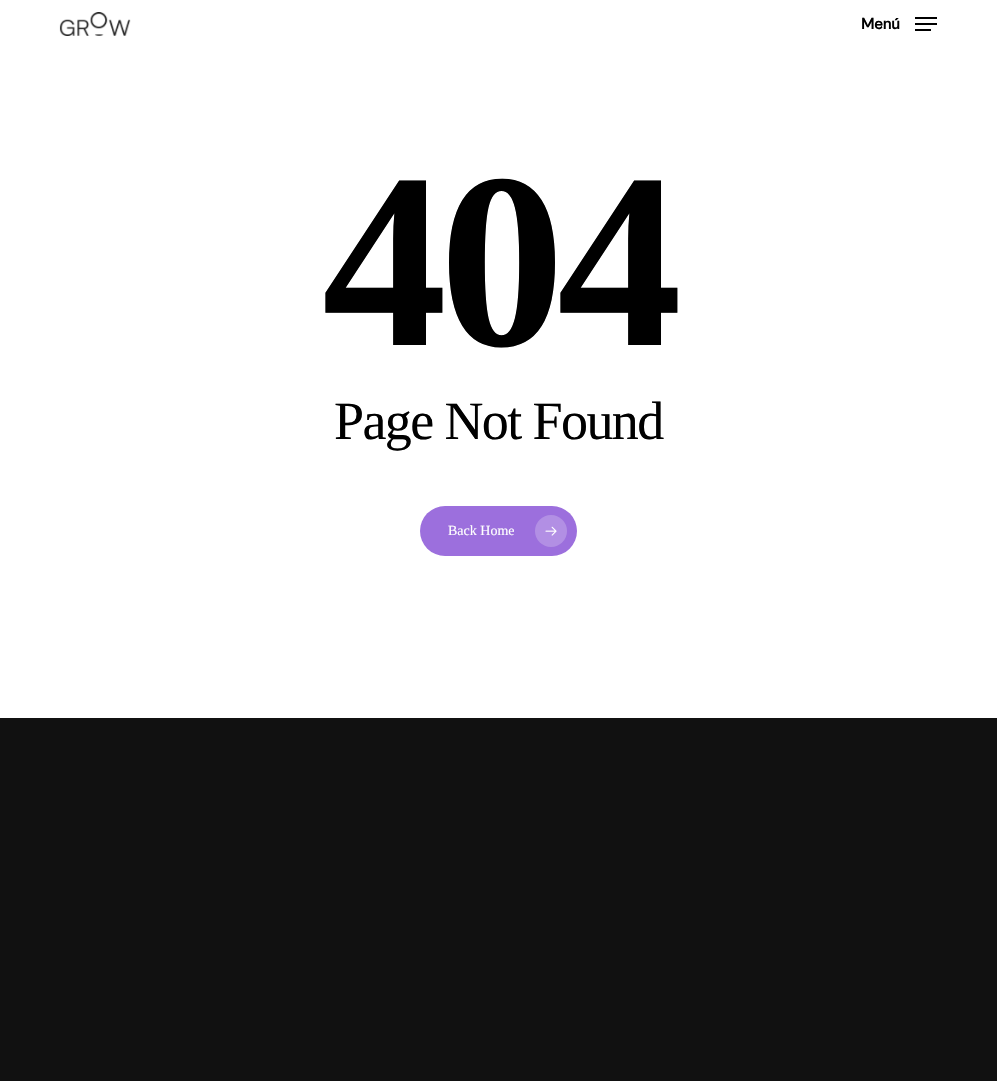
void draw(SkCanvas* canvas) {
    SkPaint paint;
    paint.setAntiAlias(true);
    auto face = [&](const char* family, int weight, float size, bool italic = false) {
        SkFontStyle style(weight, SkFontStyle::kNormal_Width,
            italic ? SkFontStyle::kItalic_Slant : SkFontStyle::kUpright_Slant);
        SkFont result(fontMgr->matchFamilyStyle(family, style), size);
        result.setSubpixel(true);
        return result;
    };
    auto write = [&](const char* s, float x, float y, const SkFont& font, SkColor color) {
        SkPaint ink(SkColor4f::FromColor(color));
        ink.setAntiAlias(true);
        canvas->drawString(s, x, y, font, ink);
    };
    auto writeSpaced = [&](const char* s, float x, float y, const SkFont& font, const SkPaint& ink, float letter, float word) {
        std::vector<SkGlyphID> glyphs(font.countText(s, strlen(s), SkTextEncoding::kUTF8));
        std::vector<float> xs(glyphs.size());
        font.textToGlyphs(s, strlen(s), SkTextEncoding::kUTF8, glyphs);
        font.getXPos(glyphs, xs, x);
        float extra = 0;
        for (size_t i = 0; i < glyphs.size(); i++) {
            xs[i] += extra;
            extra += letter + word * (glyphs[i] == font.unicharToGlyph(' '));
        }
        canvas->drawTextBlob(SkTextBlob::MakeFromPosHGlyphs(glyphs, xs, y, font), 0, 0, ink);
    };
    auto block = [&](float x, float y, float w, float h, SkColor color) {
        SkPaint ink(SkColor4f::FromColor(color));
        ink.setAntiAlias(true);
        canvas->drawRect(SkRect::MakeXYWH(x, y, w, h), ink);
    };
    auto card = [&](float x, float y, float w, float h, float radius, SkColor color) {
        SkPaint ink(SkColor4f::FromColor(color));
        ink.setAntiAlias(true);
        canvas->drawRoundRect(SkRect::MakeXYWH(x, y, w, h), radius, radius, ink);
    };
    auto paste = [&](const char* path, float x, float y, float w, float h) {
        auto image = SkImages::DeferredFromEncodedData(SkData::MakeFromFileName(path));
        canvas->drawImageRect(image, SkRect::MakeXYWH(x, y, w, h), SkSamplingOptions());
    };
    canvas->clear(SK_ColorWHITE);
    paste("pic1.png", 59, 12, 72, 24);
    auto kFont1 = face("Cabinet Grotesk", 700, 16);
    write("Menú", 861, 29, kFont1, SK_ColorBLACK);
    block(915, 17, 22, 2, SK_ColorBLACK);
    block(915, 29, 16, 2, SK_ColorBLACK);
    block(915, 23, 22, 2, SK_ColorBLACK);
    auto kFont2 = face("Liberation Serif", 700, 250);
    paint.setColor(SK_ColorBLACK);
    writeSpaced("404", 322, 345, kFont2, paint, -7.5f, 0);
    auto kFont3 = face("Liberation Serif", 400, 54);
    writeSpaced("Page Not Found", 334, 439, kFont3, paint, -1.6f, 0);
    card(420, 506, 157, 50, 25, SkColorSetRGB(156, 111, 221));
    auto kFont4 = face("Liberation Serif", 400, 14);
    write("Back Home", 448, 535, kFont4, SK_ColorWHITE);
    paint.setColor(SkColorSetRGB(178, 143, 228));
    canvas->drawCircle(551, 531, 16, paint);
    paste("pic2.png", 545, 526, 12, 10);
    block(0, 718, 997, 363, SkColorSetRGB(17, 17, 17));
}
